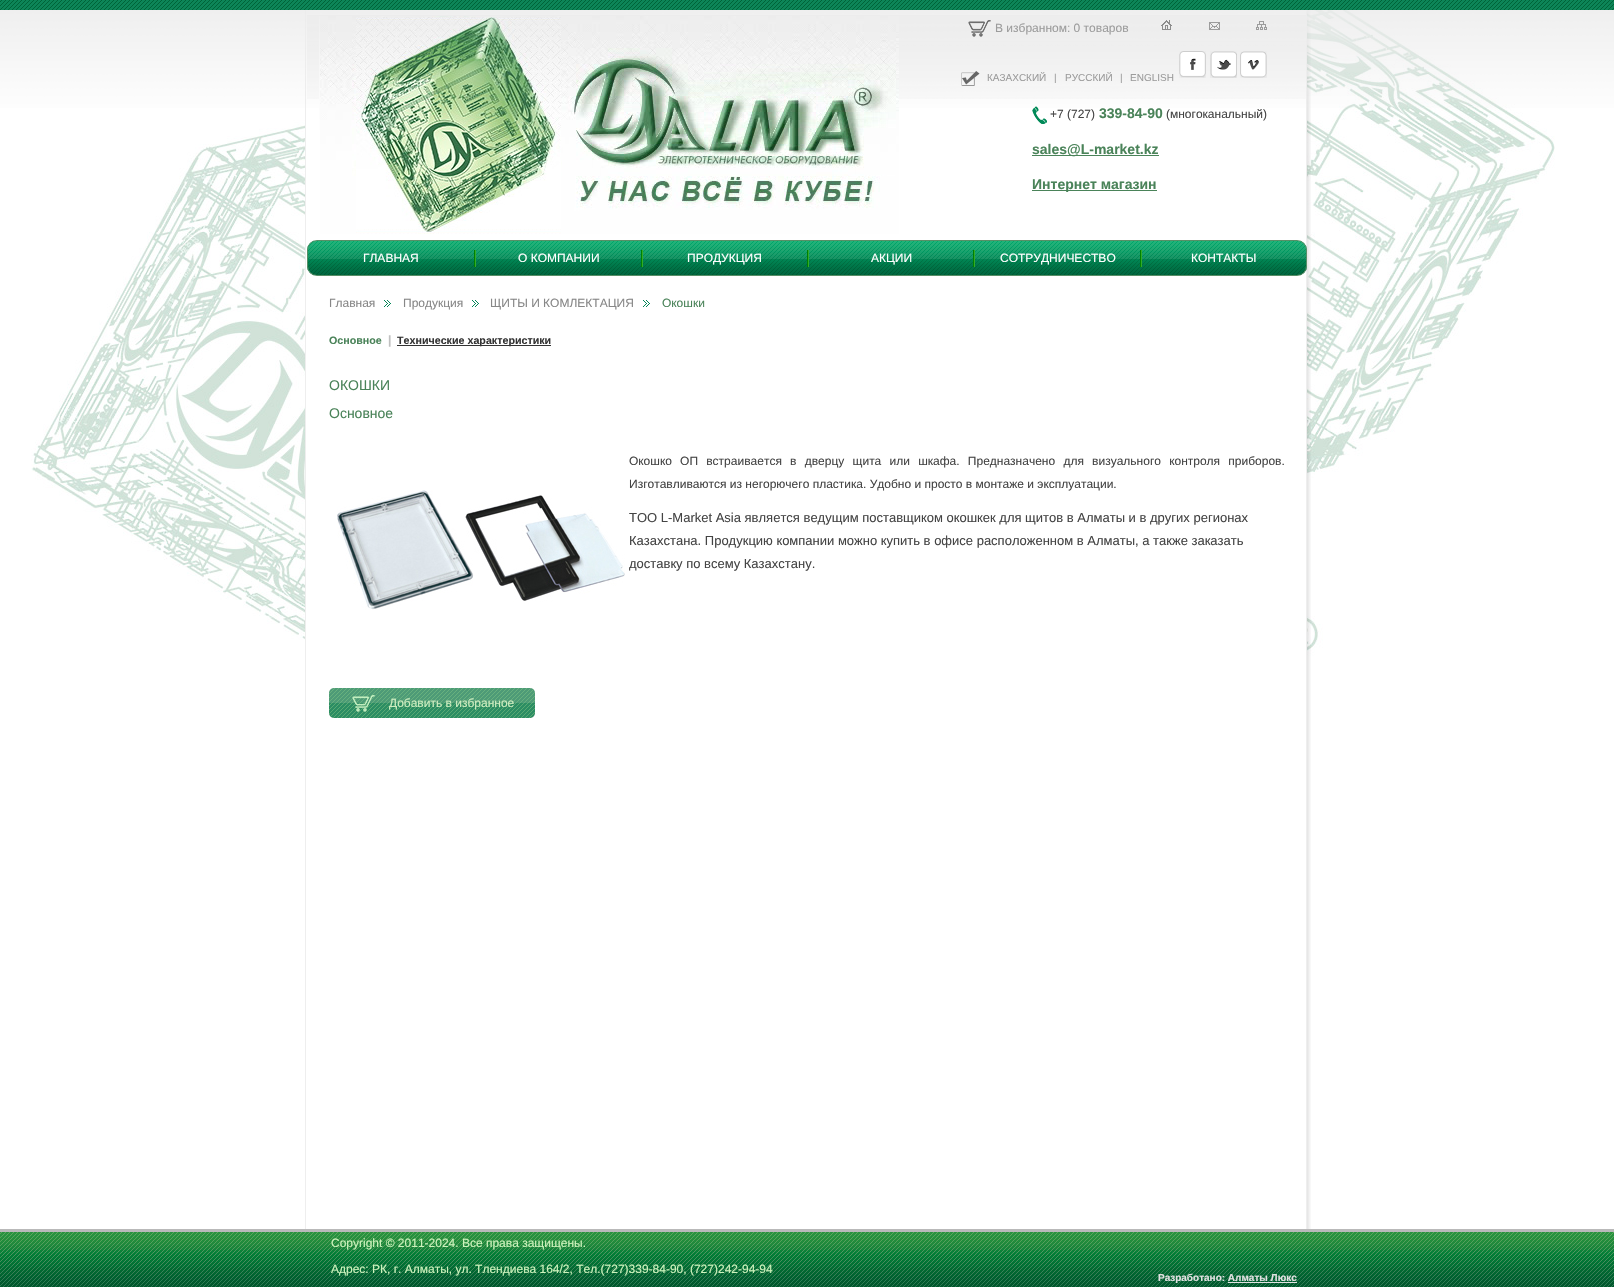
void draw(SkCanvas* canvas) {
    SkPaint paint;
    paint.setAntiAlias(true);
    auto face = [&](const char* family, int weight, float size, bool italic = false) {
        SkFontStyle style(weight, SkFontStyle::kNormal_Width,
            italic ? SkFontStyle::kItalic_Slant : SkFontStyle::kUpright_Slant);
        SkFont result(fontMgr->matchFamilyStyle(family, style), size);
        result.setSubpixel(true);
        return result;
    };
    auto write = [&](const char* s, float x, float y, const SkFont& font, SkColor color) {
        SkPaint ink(SkColor4f::FromColor(color));
        ink.setAntiAlias(true);
        canvas->drawString(s, x, y, font, ink);
    };
    auto writeSpaced = [&](const char* s, float x, float y, const SkFont& font, const SkPaint& ink, float letter, float word) {
        std::vector<SkGlyphID> glyphs(font.countText(s, strlen(s), SkTextEncoding::kUTF8));
        std::vector<float> xs(glyphs.size());
        font.textToGlyphs(s, strlen(s), SkTextEncoding::kUTF8, glyphs);
        font.getXPos(glyphs, xs, x);
        float extra = 0;
        for (size_t i = 0; i < glyphs.size(); i++) {
            xs[i] += extra;
            extra += letter + word * (glyphs[i] == font.unicharToGlyph(' '));
        }
        canvas->drawTextBlob(SkTextBlob::MakeFromPosHGlyphs(glyphs, xs, y, font), 0, 0, ink);
    };
    auto block = [&](float x, float y, float w, float h, SkColor color) {
        SkPaint ink(SkColor4f::FromColor(color));
        ink.setAntiAlias(true);
        canvas->drawRect(SkRect::MakeXYWH(x, y, w, h), ink);
    };
    auto paste = [&](const char* path, float x, float y, float w, float h) {
        auto image = SkImages::DeferredFromEncodedData(SkData::MakeFromFileName(path));
        canvas->drawImageRect(image, SkRect::MakeXYWH(x, y, w, h), SkSamplingOptions());
    };
    canvas->clear(SK_ColorWHITE);
    paste("pic1.png", 31, 10, 1524, 734);
    paste("pic2.png", 305, 10, 1006, 1219);
    paste("pic3.png", 0, 10, 1614, 98);
    paste("pic4.png", 0, 0, 1614, 10);
    paste("pic5.png", 307, 15, 999, 84);
    paste("pic6.png", 319, 16, 580, 218);
    paste("pic7.png", 968, 20, 23, 17);
    auto kFont1 = face("Liberation Sans", 400, 12);
    write("В избранном: 0 товаров", 995, 32, kFont1, SkColorSetRGB(156, 156, 156));
    paste("pic8.png", 1161, 20, 11, 10);
    paste("pic9.png", 1209, 22, 11, 8);
    paste("pic10.png", 1256, 21, 11, 9);
    paste("pic11.png", 961, 71, 19, 15);
    auto kFont2 = face("Liberation Sans", 400, 10);
    write("КАЗАХСКИЙ", 987, 81, kFont2, SkColorSetRGB(156, 156, 156));
    write("|", 1054, 81, kFont2, SkColorSetRGB(156, 156, 156));
    write("РУССКИЙ", 1065, 81, kFont2, SkColorSetRGB(156, 156, 156));
    write("|", 1120, 81, kFont2, SkColorSetRGB(156, 156, 156));
    write("ENGLISH", 1130, 81, kFont2, SkColorSetRGB(156, 156, 156));
    paste("pic12.png", 1179, 51, 27, 27);
    paste("pic13.png", 1210, 51, 27, 27);
    paste("pic14.png", 1240, 51, 27, 27);
    paste("pic15.png", 1032, 106, 15, 18);
    write("+7 (727)", 1050, 118, kFont1, SkColorSetRGB(68, 68, 68));
    auto kFont3 = face("Liberation Sans", 700, 14);
    write("339-84-90", 1099, 118, kFont3, SkColorSetRGB(74, 131, 89));
    write("(многоканальный)", 1166, 118, kFont1, SkColorSetRGB(68, 68, 68));
    block(1032, 155, 127, 1, SkColorSetRGB(74, 131, 89));
    write("sales@L-market.kz", 1032, 154, kFont3, SkColorSetRGB(74, 131, 89));
    block(1032, 190, 125, 1, SkColorSetRGB(74, 131, 89));
    write("Интернет магазин", 1032, 189, kFont3, SkColorSetRGB(74, 131, 89));
    paste("pic16.png", 307, 241, 1000, 34);
    paint.setStyle(SkPaint::kStroke_Style);
    paint.setStrokeWidth(1);
    paint.setColor(SkColorSetRGB(87, 142, 102));
    canvas->drawRoundRect(SkRect::MakeXYWH(307.5f, 240.5f, 999, 35), 9.5f, 9.5f, paint);
    write("ГЛАВНАЯ", 363, 262, kFont1, SK_ColorWHITE);
    paste("pic17.png", 474, 250, 2, 17);
    write("О КОМПАНИИ", 518, 262, kFont1, SK_ColorWHITE);
    paste("pic17.png", 641, 250, 2, 17);
    write("ПРОДУКЦИЯ", 687, 262, kFont1, SK_ColorWHITE);
    paste("pic17.png", 807, 250, 2, 17);
    write("АКЦИИ", 871, 262, kFont1, SK_ColorWHITE);
    paste("pic17.png", 973, 250, 2, 17);
    write("СОТРУДНИЧЕСТВО", 1000, 262, kFont1, SK_ColorWHITE);
    paste("pic17.png", 1140, 250, 2, 17);
    write("КОНТАКТЫ", 1191, 262, kFont1, SK_ColorWHITE);
    paste("pic18.png", 384, 300, 7, 7);
    write("Главная", 329, 307, kFont1, SkColorSetRGB(135, 135, 135));
    paste("pic18.png", 472, 300, 7, 7);
    write("Продукция", 403, 307, kFont1, SkColorSetRGB(135, 135, 135));
    paste("pic18.png", 643, 300, 7, 7);
    write("ЩИТЫ И КОМЛЕКТАЦИЯ", 490, 307, kFont1, SkColorSetRGB(135, 135, 135));
    write("Окошки", 662, 307, kFont1, SkColorSetRGB(74, 131, 89));
    auto kFont4 = face("Liberation Sans", 700, 10.7f);
    write("Основное", 329, 344, kFont4, SkColorSetRGB(74, 131, 89));
    auto kFont5 = face("Liberation Sans", 700, 12);
    write("|", 388, 344, kFont5, SkColorSetRGB(192, 192, 192));
    block(397, 345, 154, 1, SkColorSetRGB(51, 51, 51));
    write("Технические характеристики", 397, 344, kFont4, SkColorSetRGB(51, 51, 51));
    auto kFont6 = face("Liberation Sans", 400, 14);
    write("ОКОШКИ", 329, 390, kFont6, SkColorSetRGB(74, 131, 89));
    write("Основное", 329, 418, kFont6, SkColorSetRGB(74, 131, 89));
    paste("pic19.png", 337, 490, 288, 120);
    paint.setStyle(SkPaint::kFill_Style);
    paint.setColor(SkColorSetRGB(68, 68, 68));
    writeSpaced("Окошко ОП встраивается в дверцу щита или шкафа. Предназначено для визуального контроля приборов.", 629, 465, kFont1, paint, 0, 4.9f);
    write("Изготавливаются из негорючего пластика. Удобно и просто в монтаже и эксплуатации.", 629, 488, kFont1, SkColorSetRGB(68, 68, 68));
    auto kFont7 = face("Liberation Sans", 400, 13);
    write("ТОО L-Market Asia является ведущим поставщиком окошкек для щитов в Алматы и в других регионах", 629, 522, kFont7, SkColorSetRGB(68, 68, 68));
    write("Казахстана. Продукцию компании можно купить в офисе расположенном в Алматы, а также заказать", 629, 545, kFont7, SkColorSetRGB(68, 68, 68));
    write("доставку по всему Казахстану.", 629, 568, kFont7, SkColorSetRGB(68, 68, 68));
    paste("pic20.png", 329, 688, 206, 30);
    write("Добавить в избранное", 389, 707, kFont1, SkColorSetRGB(206, 237, 192));
    paste("pic21.png", 0, 1232, 1614, 55);
    block(0, 1229, 1614, 3, SkColorSetRGB(185, 185, 185));
    write("Copyright © 2011-2024. Все права защищены.", 331, 1247, kFont1, SkColorSetRGB(205, 243, 188));
    write("Адрес: РК, г. Алматы, ул. Тлендиева 164/2, Тел.(727)339-84-90, (727)242-94-94", 331, 1273, kFont1, SkColorSetRGB(205, 243, 188));
    auto kFont8 = face("Liberation Sans", 700, 10);
    write("Разработано: Алматы Люкс", 1158, 1281, kFont8, SkColorSetRGB(226, 226, 226));
    block(1228, 1282, 69, 1, SkColorSetRGB(226, 226, 226));
}
